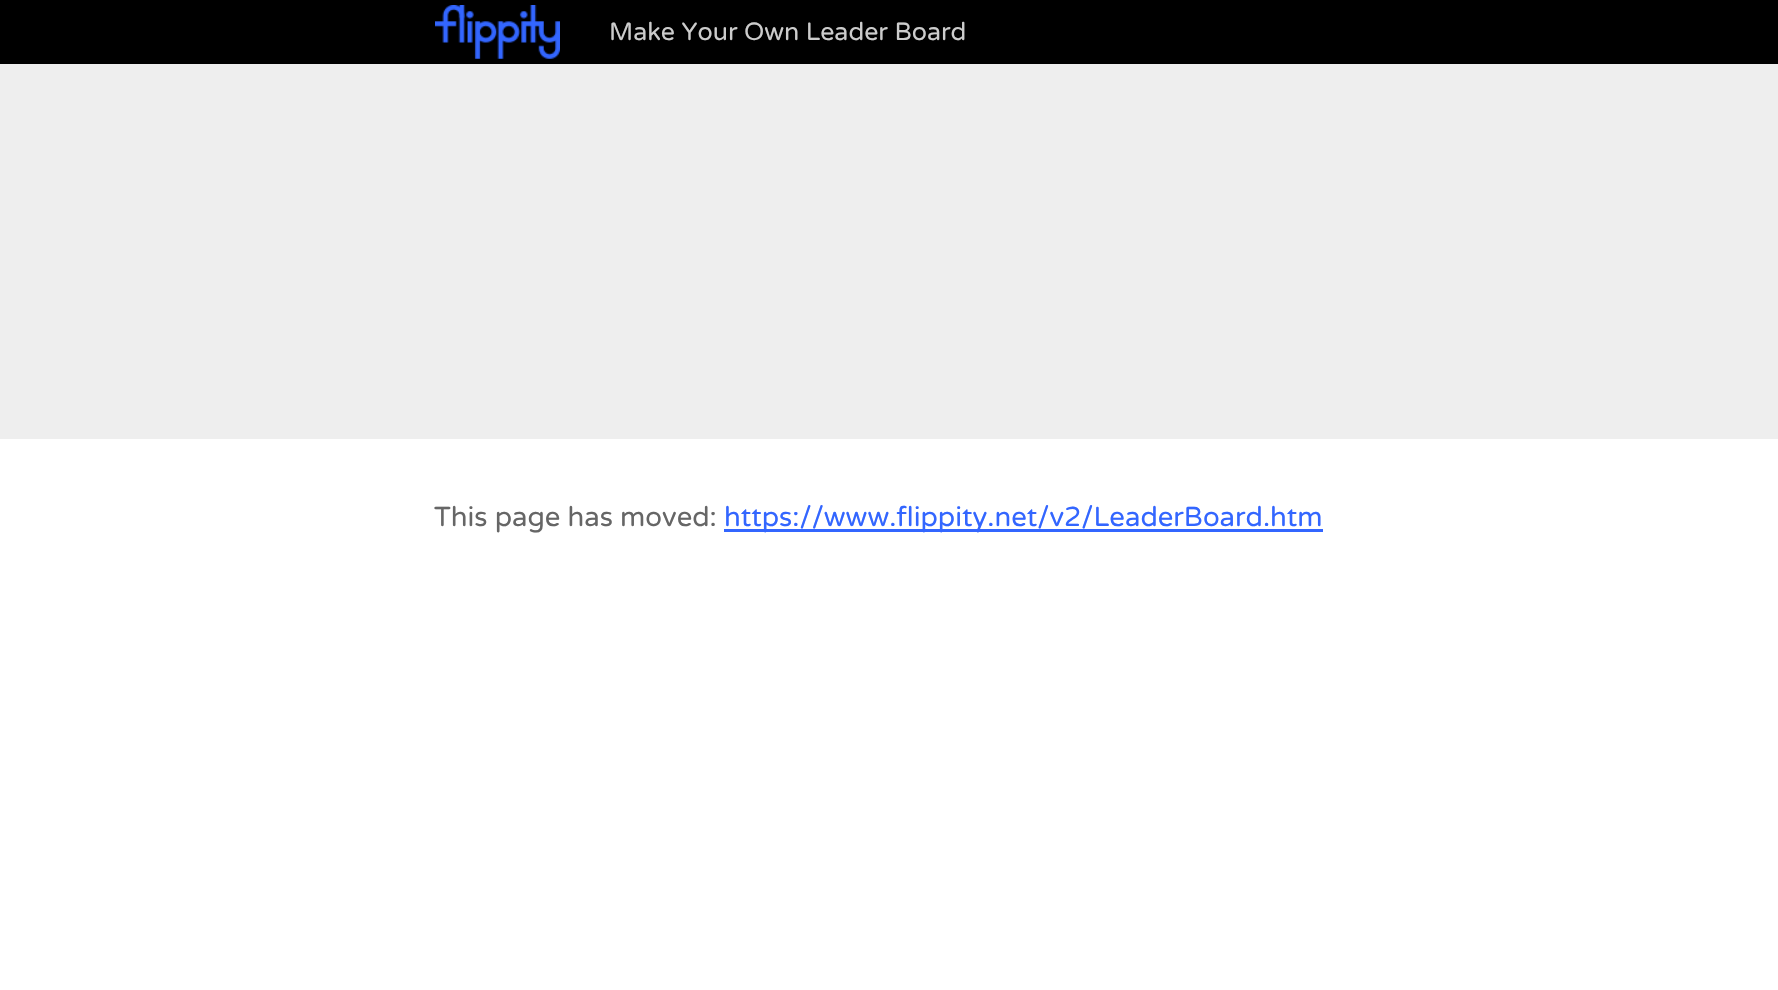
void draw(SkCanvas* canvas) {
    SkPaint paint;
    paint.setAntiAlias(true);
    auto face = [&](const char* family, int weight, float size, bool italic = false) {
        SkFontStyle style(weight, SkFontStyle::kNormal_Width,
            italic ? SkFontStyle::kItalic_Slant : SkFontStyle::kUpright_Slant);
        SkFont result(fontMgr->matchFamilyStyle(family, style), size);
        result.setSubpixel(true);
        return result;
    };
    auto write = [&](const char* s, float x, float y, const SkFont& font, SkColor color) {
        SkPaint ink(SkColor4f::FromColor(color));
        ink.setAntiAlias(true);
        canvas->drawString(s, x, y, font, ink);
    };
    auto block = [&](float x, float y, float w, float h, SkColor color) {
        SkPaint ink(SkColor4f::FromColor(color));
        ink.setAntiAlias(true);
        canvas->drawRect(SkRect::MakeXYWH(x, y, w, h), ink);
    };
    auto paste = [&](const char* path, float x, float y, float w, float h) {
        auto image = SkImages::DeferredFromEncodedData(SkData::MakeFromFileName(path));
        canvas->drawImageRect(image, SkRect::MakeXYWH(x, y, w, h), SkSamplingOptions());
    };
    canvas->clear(SK_ColorWHITE);
    block(0, 0, 1778, 64, SK_ColorBLACK);
    paste("pic1.png", 435, 5, 125, 54);
    auto kFont1 = face("Varela Round", 400, 25);
    write("Make Your Own Leader Board", 609, 40, kFont1, SkColorSetRGB(204, 204, 204));
    block(0, 64, 1778, 375, SkColorSetRGB(238, 238, 238));
    auto kFont2 = face("Varela Round", 400, 27.5f);
    write("This page has moved:", 434, 526, kFont2, SkColorSetRGB(102, 102, 102));
    block(724, 529, 599, 3, SkColorSetRGB(51, 102, 255));
    write("https://www.flippity.net/v2/LeaderBoard.htm", 724, 526, kFont2, SkColorSetRGB(51, 102, 255));
}
